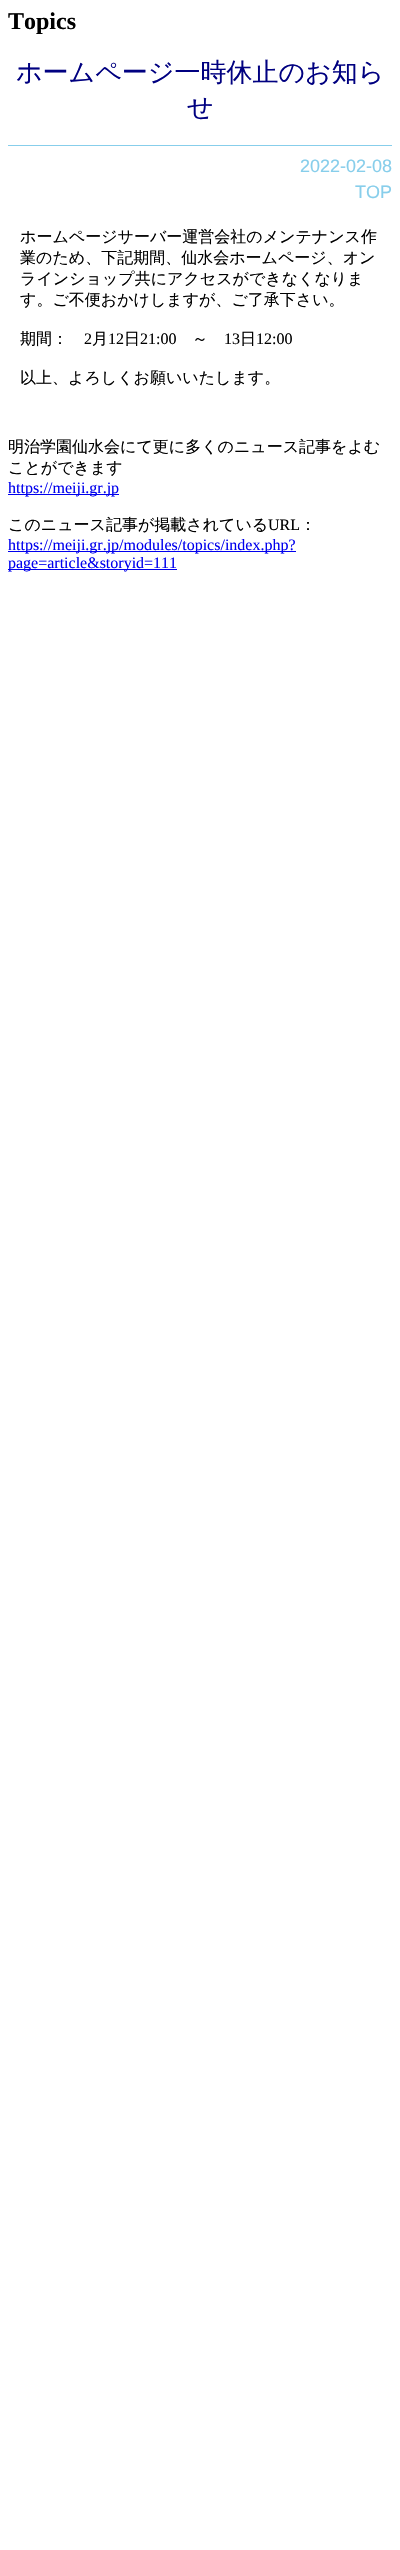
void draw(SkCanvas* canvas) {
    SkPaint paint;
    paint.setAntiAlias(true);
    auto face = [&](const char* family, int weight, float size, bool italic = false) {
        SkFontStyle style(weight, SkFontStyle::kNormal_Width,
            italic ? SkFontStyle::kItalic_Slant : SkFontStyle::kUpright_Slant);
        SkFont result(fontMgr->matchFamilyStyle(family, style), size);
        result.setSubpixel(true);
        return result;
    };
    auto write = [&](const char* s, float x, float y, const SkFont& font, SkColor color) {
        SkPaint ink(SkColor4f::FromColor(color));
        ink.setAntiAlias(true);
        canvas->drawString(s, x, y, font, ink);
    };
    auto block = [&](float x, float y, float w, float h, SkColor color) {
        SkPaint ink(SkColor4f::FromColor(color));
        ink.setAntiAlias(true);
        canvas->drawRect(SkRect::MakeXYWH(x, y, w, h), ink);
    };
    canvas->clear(SK_ColorWHITE);
    auto kFont1 = face("Liberation Serif", 700, 24);
    write("Topics", 8, 29, kFont1, SK_ColorBLACK);
    auto kFont2 = face("WenQuanYi Zen Hei", 500, 26);
    write("ホームページ一時休止のお知ら", 16, 81, kFont2, SkColorSetRGB(0, 0, 128));
    write("せ", 187, 116, kFont2, SkColorSetRGB(0, 0, 128));
    block(8, 145, 384, 1, SkColorSetRGB(135, 206, 235));
    auto kFont3 = face("Liberation Sans", 400, 18);
    write("2022-02-08", 300, 172, kFont3, SkColorSetRGB(135, 206, 235));
    write("TOP", 355, 198, kFont3, SkColorSetRGB(135, 206, 235));
    auto kFont4 = face("WenQuanYi Zen Hei", 500, 16);
    write("ホームページサーバー運営会社のメンテナンス作", 20, 242, kFont4, SK_ColorBLACK);
    write("業のため、下記期間、仙水会ホームページ、オン", 20, 263, kFont4, SK_ColorBLACK);
    write("ラインショップ共にアクセスができなくなりま", 20, 284, kFont4, SK_ColorBLACK);
    write("す。ご不便おかけしますが、ご了承下さい。", 20, 305, kFont4, SK_ColorBLACK);
    write("期間：", 20, 344, kFont4, SK_ColorBLACK);
    auto kFont5 = face("Liberation Serif", 400, 16);
    write("2", 84, 344, kFont5, SK_ColorBLACK);
    write("月", 92, 344, kFont4, SK_ColorBLACK);
    write("12", 108, 344, kFont5, SK_ColorBLACK);
    write("日", 124, 344, kFont4, SK_ColorBLACK);
    write("21:00", 140, 344, kFont5, SK_ColorBLACK);
    write("～", 192, 344, kFont4, SK_ColorBLACK);
    write("13", 224, 344, kFont5, SK_ColorBLACK);
    write("日", 240, 344, kFont4, SK_ColorBLACK);
    write("12:00", 256, 344, kFont5, SK_ColorBLACK);
    write("以上、よろしくお願いいたします。", 20, 383, kFont4, SK_ColorBLACK);
    write("明治学園仙水会にて更に多くのニュース記事をよむ", 8, 452, kFont4, SK_ColorBLACK);
    write("ことができます", 8, 473, kFont4, SK_ColorBLACK);
    block(8, 494, 111, 1, SkColorSetRGB(0, 0, 238));
    write("https://meiji.gr.jp", 8, 493, kFont5, SkColorSetRGB(0, 0, 238));
    write("このニュース記事が掲載されている", 8, 530, kFont4, SK_ColorBLACK);
    write("URL", 268, 530, kFont5, SK_ColorBLACK);
    write("：", 300, 530, kFont4, SK_ColorBLACK);
    block(8, 551, 288, 1, SkColorSetRGB(0, 0, 238));
    write("https://meiji.gr.jp/modules/topics/index.php?", 8, 550, kFont5, SkColorSetRGB(0, 0, 238));
    block(8, 569, 169, 1, SkColorSetRGB(0, 0, 238));
    write("page=article&storyid=111", 8, 568, kFont5, SkColorSetRGB(0, 0, 238));
}
